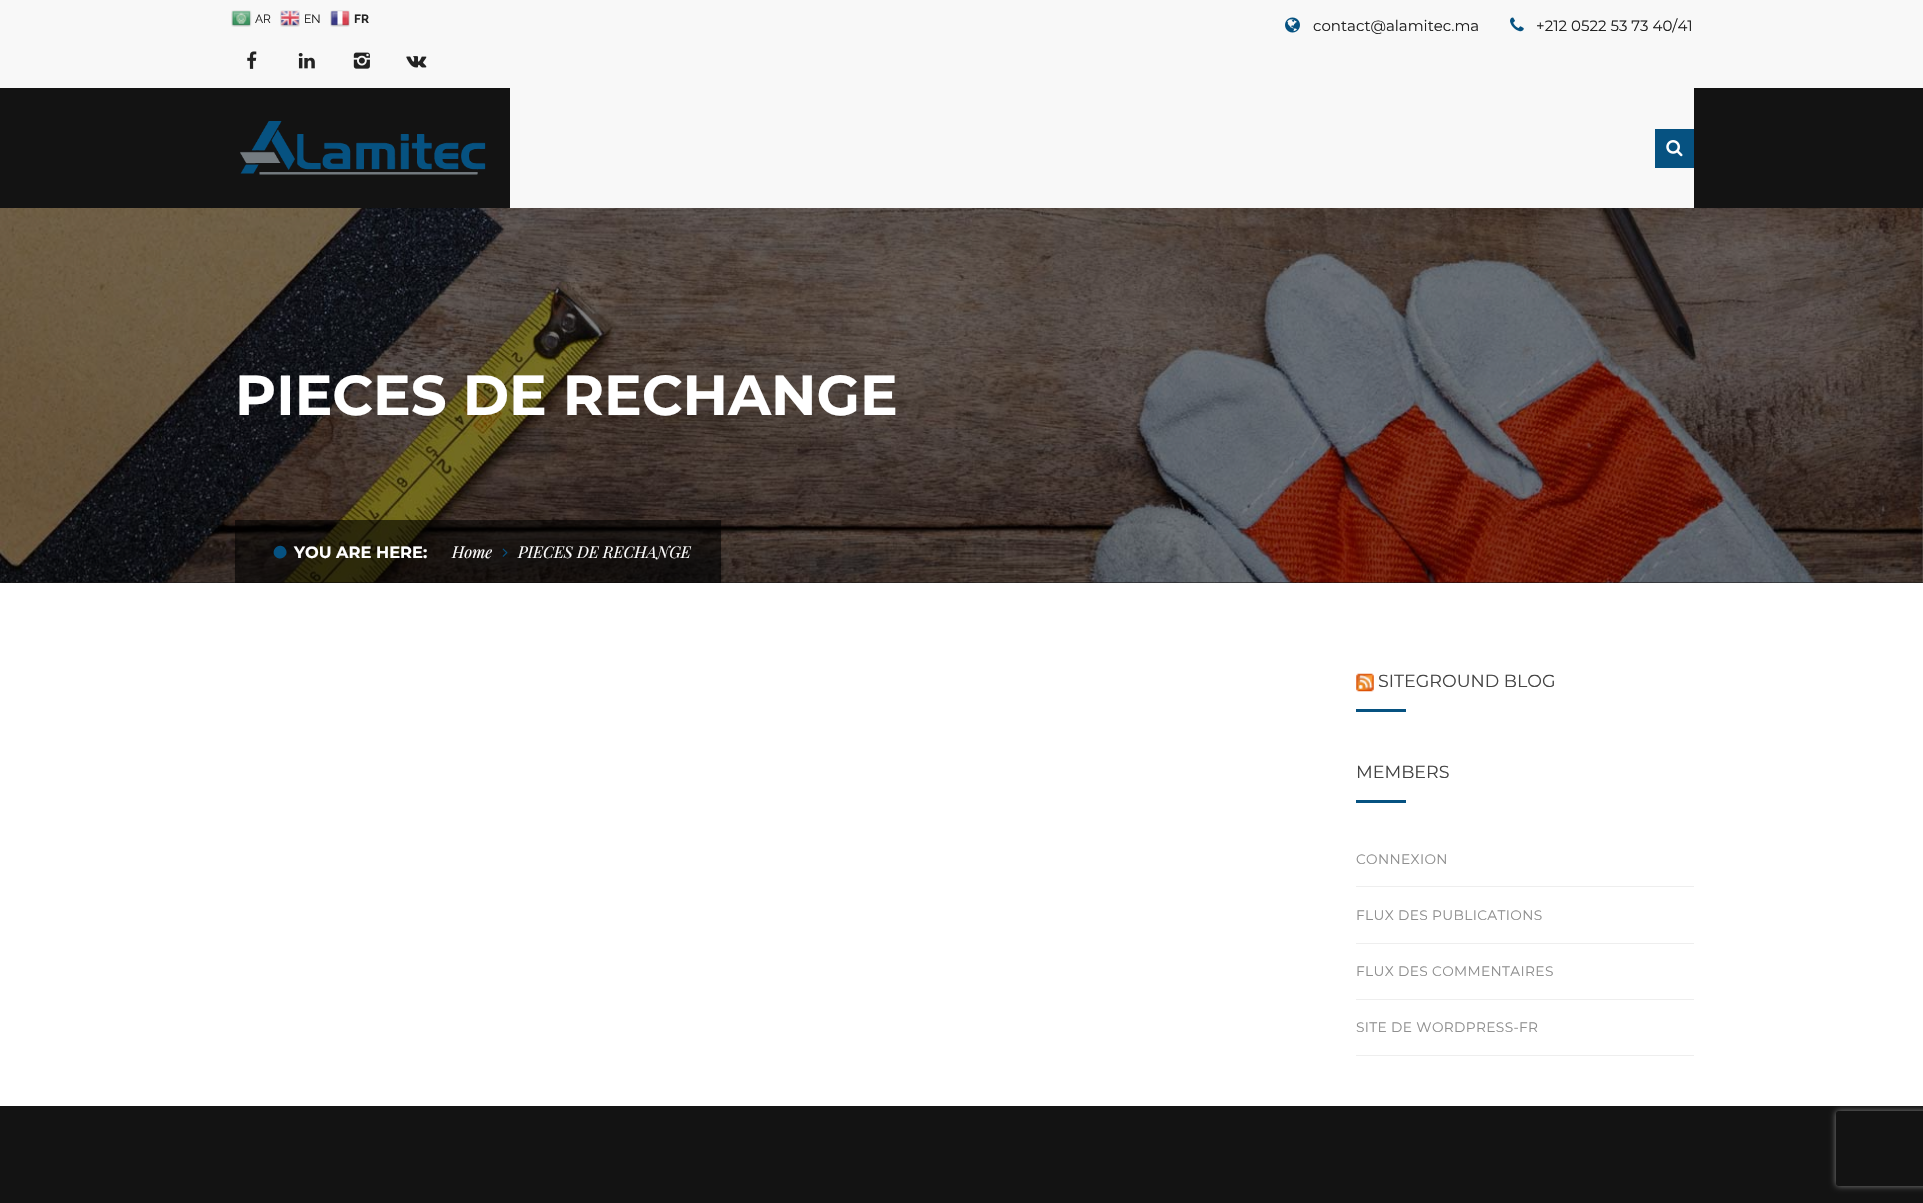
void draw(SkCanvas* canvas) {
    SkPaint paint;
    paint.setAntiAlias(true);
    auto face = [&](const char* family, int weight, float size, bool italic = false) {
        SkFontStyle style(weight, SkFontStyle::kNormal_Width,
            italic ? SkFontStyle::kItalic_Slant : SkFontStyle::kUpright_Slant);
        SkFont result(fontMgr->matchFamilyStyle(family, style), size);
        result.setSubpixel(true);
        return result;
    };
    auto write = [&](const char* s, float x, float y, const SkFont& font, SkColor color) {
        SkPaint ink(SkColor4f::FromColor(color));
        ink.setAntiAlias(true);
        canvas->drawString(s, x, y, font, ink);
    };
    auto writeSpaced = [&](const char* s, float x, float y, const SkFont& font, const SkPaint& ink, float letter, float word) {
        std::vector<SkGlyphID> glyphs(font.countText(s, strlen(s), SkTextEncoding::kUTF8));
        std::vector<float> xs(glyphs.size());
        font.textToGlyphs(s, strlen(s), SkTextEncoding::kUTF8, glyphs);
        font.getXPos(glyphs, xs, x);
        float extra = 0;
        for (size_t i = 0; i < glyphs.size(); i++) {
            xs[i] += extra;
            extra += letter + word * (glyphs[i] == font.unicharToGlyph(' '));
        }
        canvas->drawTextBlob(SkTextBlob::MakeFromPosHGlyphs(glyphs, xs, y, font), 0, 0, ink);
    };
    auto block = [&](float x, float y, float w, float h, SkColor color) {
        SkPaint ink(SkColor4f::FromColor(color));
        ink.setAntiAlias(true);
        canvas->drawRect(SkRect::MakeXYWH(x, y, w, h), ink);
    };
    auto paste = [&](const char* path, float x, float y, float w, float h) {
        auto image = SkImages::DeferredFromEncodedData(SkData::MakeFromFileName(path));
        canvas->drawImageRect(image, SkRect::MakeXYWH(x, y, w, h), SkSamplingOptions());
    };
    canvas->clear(SkColorSetRGB(19, 19, 19));
    block(0, 0, 1923, 88, SkColorSetRGB(248, 248, 248));
    paste("pic1.png", 231, 10, 21, 17);
    auto kFont1 = face("Raleway", 400, 12);
    write("AR", 255, 23, kFont1, SkColorSetRGB(34, 34, 34));
    paste("pic2.png", 280, 10, 20, 17);
    write("EN", 304, 23, kFont1, SkColorSetRGB(34, 34, 34));
    paste("pic3.png", 330, 10, 20, 17);
    auto kFont2 = face("Raleway", 700, 12);
    write("FR", 354, 23, kFont2, SkColorSetRGB(34, 34, 34));
    paste("pic4.png", 247, 51, 10, 18);
    paste("pic5.png", 298, 53, 17, 16);
    paste("pic6.png", 353, 52, 17, 17);
    paste("pic7.png", 406, 56, 21, 12);
    paste("pic8.png", 1285, 17, 15, 16);
    auto kFont3 = face("Montserrat", 400, 15);
    write("contact@alamitec.ma", 1313, 31, kFont3, SkColorSetRGB(34, 34, 34));
    paste("pic9.png", 1510, 17, 14, 15);
    write("+212 0522 53 73 40/41", 1536, 31, kFont3, SkColorSetRGB(34, 34, 34));
    paste("pic10.png", 240, 121, 246, 54);
    block(510, 88, 1184, 120, SkColorSetRGB(248, 248, 248));
    block(1655, 129, 39, 39, SkColorSetRGB(6, 82, 129));
    paste("pic11.png", 1666, 140, 17, 17);
    canvas->save();
    canvas->clipPath(SkPathBuilder(SkPathFillType::kEvenOdd).moveTo(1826, 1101).lineTo(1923, 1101).lineTo(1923, 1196).lineTo(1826, 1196).close().moveTo(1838.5f, 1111).lineTo(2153.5f, 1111).cubicTo(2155, 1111, 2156, 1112, 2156, 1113.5f).lineTo(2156, 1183.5f).cubicTo(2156, 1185, 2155, 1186, 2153.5f, 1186).lineTo(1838.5f, 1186).cubicTo(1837, 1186, 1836, 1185, 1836, 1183.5f).lineTo(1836, 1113.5f).cubicTo(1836, 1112, 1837, 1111, 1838.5f, 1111).close().detach(), true);
    paint.setColor(SkColorSetRGB(128, 128, 128));
    paint.setMaskFilter(SkMaskFilter::MakeBlur(kNormal_SkBlurStyle, 3));
    canvas->drawRoundRect(SkRect::MakeXYWH(1836, 1111, 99, 75), 2.5f, 2.5f, paint);
    paint.setMaskFilter(nullptr);
    canvas->restore();
    block(0, 583, 1923, 523, SK_ColorWHITE);
    paste("pic12.png", 0, 208, 1923, 375);
    auto kFont4 = face("Montserrat", 700, 56.25f);
    write("PIECES DE RECHANGE", 235, 415, kFont4, SK_ColorWHITE);
    block(235, 520, 486, 63, SkColorSetARGB(153, 0, 0, 0));
    paint.setColor(SkColorSetRGB(6, 82, 129));
    canvas->drawPath(SkPathBuilder().moveTo(285.5f, 549).cubicTo(290, 556, 279, 562.5f, 274.5f, 555.5f).cubicTo(270.5f, 548, 281.5f, 541.5f, 285.5f, 549).close().detach(), paint);
    auto kFont5 = face("Montserrat", 700, 16.25f);
    write("YOU ARE HERE:", 294, 558, kFont5, SK_ColorWHITE);
    auto kFont6 = face("Playfair Display", 400, 16.25f, true);
    write("Home", 452, 558, kFont6, SK_ColorWHITE);
    paste("pic13.png", 502, 548, 6, 9);
    write("PIECES DE RECHANGE", 518, 558, kFont6, SK_ColorWHITE);
    paste("pic14.png", 1356, 673, 18, 19);
    auto kFont7 = face("Montserrat", 400, 17.5f);
    write("SITEGROUND BLOG", 1378, 687, kFont7, SkColorSetRGB(68, 68, 68));
    block(1356, 709, 50, 3, SkColorSetRGB(6, 82, 129));
    write("MEMBERS", 1356, 778, kFont7, SkColorSetRGB(68, 68, 68));
    block(1356, 800, 50, 3, SkColorSetRGB(6, 82, 129));
    block(1356, 886, 338, 1, SkColorSetRGB(238, 238, 238));
    auto kFont8 = face("Montserrat", 400, 13.75f);
    paint.setColor(SkColorSetRGB(143, 143, 143));
    writeSpaced("CONNEXION", 1356, 864, kFont8, paint, 0.35f, 0);
    block(1356, 943, 338, 1, SkColorSetRGB(238, 238, 238));
    writeSpaced("FLUX DES PUBLICATIONS", 1356, 920, kFont8, paint, 0.35f, 0);
    block(1356, 999, 338, 1, SkColorSetRGB(238, 238, 238));
    writeSpaced("FLUX DES COMMENTAIRES", 1356, 976, kFont8, paint, 0.35f, 0);
    block(1356, 1055, 338, 1, SkColorSetRGB(238, 238, 238));
    writeSpaced("SITE DE WORDPRESS-FR", 1356, 1032, kFont8, paint, 0.35f, 0);
}
